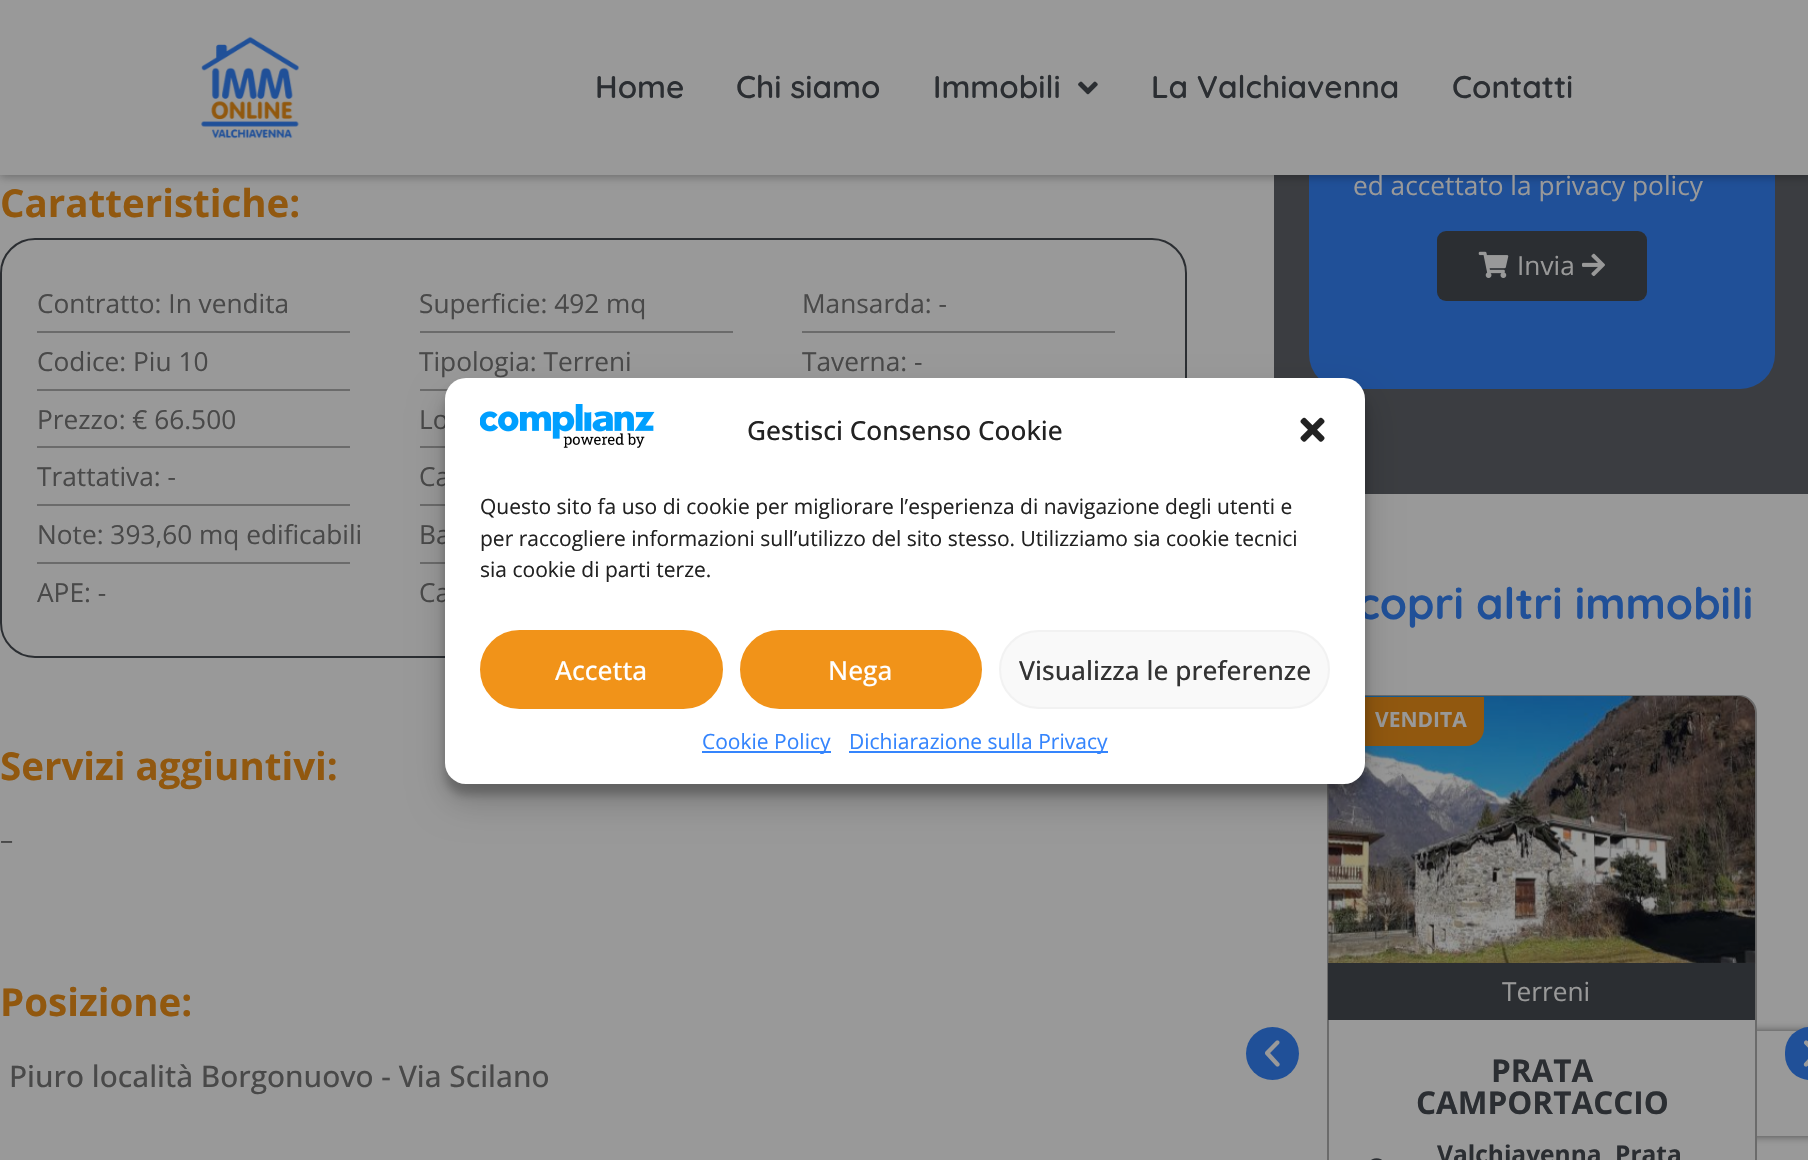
void draw(SkCanvas* canvas) {
    SkPaint paint;
    paint.setAntiAlias(true);
    auto face = [&](const char* family, int weight, float size, bool italic = false) {
        SkFontStyle style(weight, SkFontStyle::kNormal_Width,
            italic ? SkFontStyle::kItalic_Slant : SkFontStyle::kUpright_Slant);
        SkFont result(fontMgr->matchFamilyStyle(family, style), size);
        result.setSubpixel(true);
        return result;
    };
    auto write = [&](const char* s, float x, float y, const SkFont& font, SkColor color) {
        SkPaint ink(SkColor4f::FromColor(color));
        ink.setAntiAlias(true);
        canvas->drawString(s, x, y, font, ink);
    };
    auto block = [&](float x, float y, float w, float h, SkColor color) {
        SkPaint ink(SkColor4f::FromColor(color));
        ink.setAntiAlias(true);
        canvas->drawRect(SkRect::MakeXYWH(x, y, w, h), ink);
    };
    auto card = [&](float x, float y, float w, float h, float radius, SkColor color) {
        SkPaint ink(SkColor4f::FromColor(color));
        ink.setAntiAlias(true);
        canvas->drawRoundRect(SkRect::MakeXYWH(x, y, w, h), radius, radius, ink);
    };
    auto paste = [&](const char* path, float x, float y, float w, float h) {
        auto image = SkImages::DeferredFromEncodedData(SkData::MakeFromFileName(path));
        canvas->drawImageRect(image, SkRect::MakeXYWH(x, y, w, h), SkSamplingOptions());
    };
    canvas->clear(SkColorSetRGB(153, 153, 153));
    block(1274, 175, 534, 319, SkColorSetRGB(59, 61, 65));
    card(1309, -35, 466, 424, 35, SkColorSetRGB(32, 80, 152));
    paint.setColor(SkColorSetARGB(74, 0, 0, 0));
    paint.setMaskFilter(SkMaskFilter::MakeBlur(kNormal_SkBlurStyle, 4.5f));
    canvas->drawRect(SkRect::MakeXYWH(0, 2, 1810, 175), paint);
    paint.setMaskFilter(nullptr);
    block(0, 0, 1808, 175, SkColorSetRGB(153, 153, 153));
    paste("pic1.png", 201, 36, 99, 103);
    auto kFont1 = face("Quicksand", 600, 31.5f);
    write("Home", 595, 98, kFont1, SkColorSetRGB(43, 46, 50));
    write("Chi siamo", 736, 98, kFont1, SkColorSetRGB(43, 46, 50));
    write("Immobili", 933, 98, kFont1, SkColorSetRGB(43, 46, 50));
    paste("pic2.png", 1078, 81, 20, 14);
    write("La Valchiavenna", 1151, 98, kFont1, SkColorSetRGB(43, 46, 50));
    write("Contatti", 1452, 98, kFont1, SkColorSetRGB(43, 46, 50));
    auto kFont2 = face("Open Sans", 700, 38.5f);
    write("Caratteristiche:", 0, 217, kFont2, SkColorSetRGB(145, 88, 15));
    paint.setStyle(SkPaint::kStroke_Style);
    paint.setStrokeWidth(2);
    paint.setColor(SkColorSetRGB(43, 46, 50));
    canvas->drawRoundRect(SkRect::MakeXYWH(1, 239, 1185, 418), 34, 34, paint);
    auto kFont3 = face("Open Sans", 400, 26.25f);
    write("Contratto: In vendita", 37, 313, kFont3, SkColorSetRGB(73, 73, 73));
    block(37, 331, 313, 2, SkColorSetRGB(107, 107, 107));
    write("Codice: Piu 10", 37, 371, kFont3, SkColorSetRGB(73, 73, 73));
    block(37, 389, 313, 2, SkColorSetRGB(107, 107, 107));
    write("Prezzo: € 66.500", 37, 429, kFont3, SkColorSetRGB(73, 73, 73));
    block(37, 446, 313, 2, SkColorSetRGB(107, 107, 107));
    write("Trattativa: -", 37, 486, kFont3, SkColorSetRGB(73, 73, 73));
    block(37, 504, 313, 2, SkColorSetRGB(107, 107, 107));
    write("Note: 393,60 mq edificabili", 37, 544, kFont3, SkColorSetRGB(73, 73, 73));
    block(37, 562, 313, 2, SkColorSetRGB(107, 107, 107));
    write("APE: -", 37, 602, kFont3, SkColorSetRGB(73, 73, 73));
    write("Superficie: 492 mq", 419, 313, kFont3, SkColorSetRGB(73, 73, 73));
    block(420, 331, 313, 2, SkColorSetRGB(107, 107, 107));
    write("Tipologia: Terreni", 419, 371, kFont3, SkColorSetRGB(73, 73, 73));
    block(420, 389, 28, 2, SkColorSetRGB(107, 107, 107));
    write("Lo", 419, 429, kFont3, SkColorSetRGB(73, 73, 73));
    block(420, 446, 25, 2, SkColorSetRGB(107, 107, 107));
    write("Ca", 419, 486, kFont3, SkColorSetRGB(73, 73, 73));
    block(420, 504, 25, 2, SkColorSetRGB(107, 107, 107));
    write("Ba", 419, 544, kFont3, SkColorSetRGB(73, 73, 73));
    block(420, 562, 25, 2, SkColorSetRGB(107, 107, 107));
    write("Ca", 419, 602, kFont3, SkColorSetRGB(73, 73, 73));
    write("Mansarda: -", 802, 313, kFont3, SkColorSetRGB(73, 73, 73));
    block(802, 331, 313, 2, SkColorSetRGB(107, 107, 107));
    write("Taverna: -", 802, 371, kFont3, SkColorSetRGB(73, 73, 73));
    write("Servizi aggiuntivi:", 0, 780, kFont2, SkColorSetRGB(145, 88, 15));
    write("–", 0, 849, kFont3, SkColorSetRGB(73, 73, 73));
    write("Posizione:", 0, 1016, kFont2, SkColorSetRGB(145, 88, 15));
    auto kFont4 = face("Open Sans", 500, 29.75f);
    write("Piuro località Borgonuovo - Via Scilano", 9, 1087, kFont4, SkColorSetRGB(73, 73, 73));
    write("ed accettato la privacy policy", 1353, 195, kFont3, SkColorSetRGB(153, 153, 153));
    card(1437, 231, 210, 70, 9, SkColorSetRGB(43, 46, 50));
    paste("pic3.png", 1478, 251, 31, 27);
    write("Invia", 1517, 275, kFont3, SkColorSetRGB(153, 153, 153));
    paste("pic4.png", 1582, 253, 23, 24);
    canvas->save();
    canvas->clipPath(SkPathBuilder(SkPathFillType::kEvenOdd).moveTo(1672, 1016).lineTo(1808, 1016).lineTo(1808, 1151).lineTo(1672, 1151).close().moveTo(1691, 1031).lineTo(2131, 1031).cubicTo(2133, 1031, 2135, 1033, 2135, 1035).lineTo(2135, 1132).cubicTo(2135, 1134, 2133, 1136, 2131, 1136).lineTo(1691, 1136).cubicTo(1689, 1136, 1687, 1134, 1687, 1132).lineTo(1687, 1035).cubicTo(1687, 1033, 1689, 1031, 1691, 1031).close().detach(), true);
    paint.setStyle(SkPaint::kFill_Style);
    paint.setColor(SkColorSetRGB(77, 77, 77));
    paint.setMaskFilter(SkMaskFilter::MakeBlur(kNormal_SkBlurStyle, 4.5f));
    canvas->drawRoundRect(SkRect::MakeXYWH(1687, 1031, 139, 105), 4, 4, paint);
    paint.setMaskFilter(nullptr);
    canvas->restore();
    auto kFont5 = face("Quicksand", 700, 43.75f);
    write("copri altri immobili", 1357, 619, kFont5, SkColorSetRGB(32, 80, 152));
    paint.setColor(SkColorSetRGB(32, 80, 152));
    canvas->drawCircle(1272.5f, 1053.5f, 26.5f, paint);
    paste("pic5.png", 1265, 1040, 15, 27);
    paint.setColor(SkColorSetRGB(153, 153, 153));
    canvas->drawRoundRect(SkRect::MakeXYWH(1328, 696, 428, 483), 17, 17, paint);
    paint.setStyle(SkPaint::kStroke_Style);
    paint.setColor(SkColorSetRGB(107, 107, 107));
    canvas->drawRoundRect(SkRect::MakeXYWH(1328, 696, 428, 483), 17, 17, paint);
    paste("pic6.png", 1328, 696, 428, 268);
    paint.setStyle(SkPaint::kFill_Style);
    paint.setColor(SkColorSetRGB(145, 88, 15));
    canvas->drawPath(SkPathBuilder().moveTo(1346, 697).lineTo(1484, 697).lineTo(1484, 728).cubicTo(1484, 738, 1476, 746, 1466, 746).lineTo(1328, 746).lineTo(1328, 715).cubicTo(1328, 705, 1336, 697, 1346, 697).close().detach(), paint);
    auto kFont6 = face("Open Sans", 700, 21);
    write("VENDITA", 1375, 727, kFont6, SkColorSetRGB(153, 153, 153));
    block(1328, 963, 427, 57, SkColorSetRGB(43, 46, 50));
    write("Terreni", 1502, 1001, kFont3, SkColorSetRGB(153, 153, 153));
    auto kFont7 = face("Open Sans", 700, 31.5f);
    write("PRATA", 1491, 1082, kFont7, SkColorSetRGB(43, 46, 50));
    write("CAMPORTACCIO", 1416, 1114, kFont7, SkColorSetRGB(43, 46, 50));
    paste("pic7.png", 1371, 1158, 11, 2);
    auto kFont8 = face("Open Sans", 700, 24.5f);
    write("Valchiavenna", 1437, 1163, kFont8, SkColorSetRGB(43, 46, 50));
    write("Prata", 1615, 1163, kFont8, SkColorSetRGB(43, 46, 50));
    card(1785, 1027, 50, 53, 26.5f, SkColorSetRGB(32, 80, 152));
    paste("pic8.png", 1803, 1040, 5, 27);
    paint.setColor(SkColorSetARGB(59, 0, 0, 0));
    paint.setMaskFilter(SkMaskFilter::MakeBlur(kNormal_SkBlurStyle, 5));
    canvas->drawRoundRect(SkRect::MakeXYWH(445, 389, 920, 406), 21, 21, paint);
    paint.setMaskFilter(nullptr);
    paint.setColor(SkColorSetARGB(48, 0, 0, 0));
    paint.setMaskFilter(SkMaskFilter::MakeBlur(kNormal_SkBlurStyle, 17.5f));
    canvas->drawRoundRect(SkRect::MakeXYWH(445, 396, 920, 406), 21, 21, paint);
    paint.setMaskFilter(nullptr);
    card(445, 378, 920, 406, 21, SK_ColorWHITE);
    paste("pic9.png", 480, 404, 175, 44);
    auto kFont9 = face("Open Sans", 500, 26.25f);
    write("Gestisci Consenso Cookie", 747, 440, kFont9, SkColorSetRGB(34, 34, 34));
    paste("pic10.png", 1300, 417, 25, 25);
    auto kFont10 = face("Open Sans", 400, 21);
    write("Questo sito fa uso di cookie per migliorare l’esperienza di navigazione degli utenti e", 480, 514, kFont10, SkColorSetRGB(34, 34, 34));
    write("per raccogliere informazioni sull’utilizzo del sito stesso. Utilizziamo sia cookie tecnici", 480, 546, kFont10, SkColorSetRGB(34, 34, 34));
    write("sia cookie di parti terze.", 480, 577, kFont10, SkColorSetRGB(34, 34, 34));
    paint.setColor(SkColorSetRGB(241, 147, 25));
    canvas->drawRoundRect(SkRect::MakeXYWH(481, 631, 241, 77), 38.5f, 38.5f, paint);
    paint.setStyle(SkPaint::kStroke_Style);
    canvas->drawRoundRect(SkRect::MakeXYWH(481, 631, 241, 77), 38.5f, 38.5f, paint);
    write("Accetta", 555, 680, kFont9, SK_ColorWHITE);
    paint.setStyle(SkPaint::kFill_Style);
    canvas->drawRoundRect(SkRect::MakeXYWH(741, 631, 240, 77), 38.5f, 38.5f, paint);
    paint.setStyle(SkPaint::kStroke_Style);
    canvas->drawRoundRect(SkRect::MakeXYWH(741, 631, 240, 77), 38.5f, 38.5f, paint);
    write("Nega", 828, 680, kFont9, SK_ColorWHITE);
    paint.setStyle(SkPaint::kFill_Style);
    paint.setColor(SkColorSetRGB(249, 249, 249));
    canvas->drawRoundRect(SkRect::MakeXYWH(1000, 631, 329, 77), 38.5f, 38.5f, paint);
    paint.setStyle(SkPaint::kStroke_Style);
    paint.setColor(SkColorSetRGB(242, 242, 242));
    canvas->drawRoundRect(SkRect::MakeXYWH(1000, 631, 329, 77), 38.5f, 38.5f, paint);
    write("Visualizza le preferenze", 1019, 680, kFont9, SkColorSetRGB(51, 51, 51));
    block(702, 751, 129, 2, SkColorSetRGB(53, 133, 253));
    write("Cookie Policy", 702, 749, kFont10, SkColorSetRGB(53, 133, 253));
    block(849, 751, 259, 2, SkColorSetRGB(53, 133, 253));
    write("Dichiarazione sulla Privacy", 849, 749, kFont10, SkColorSetRGB(53, 133, 253));
}
